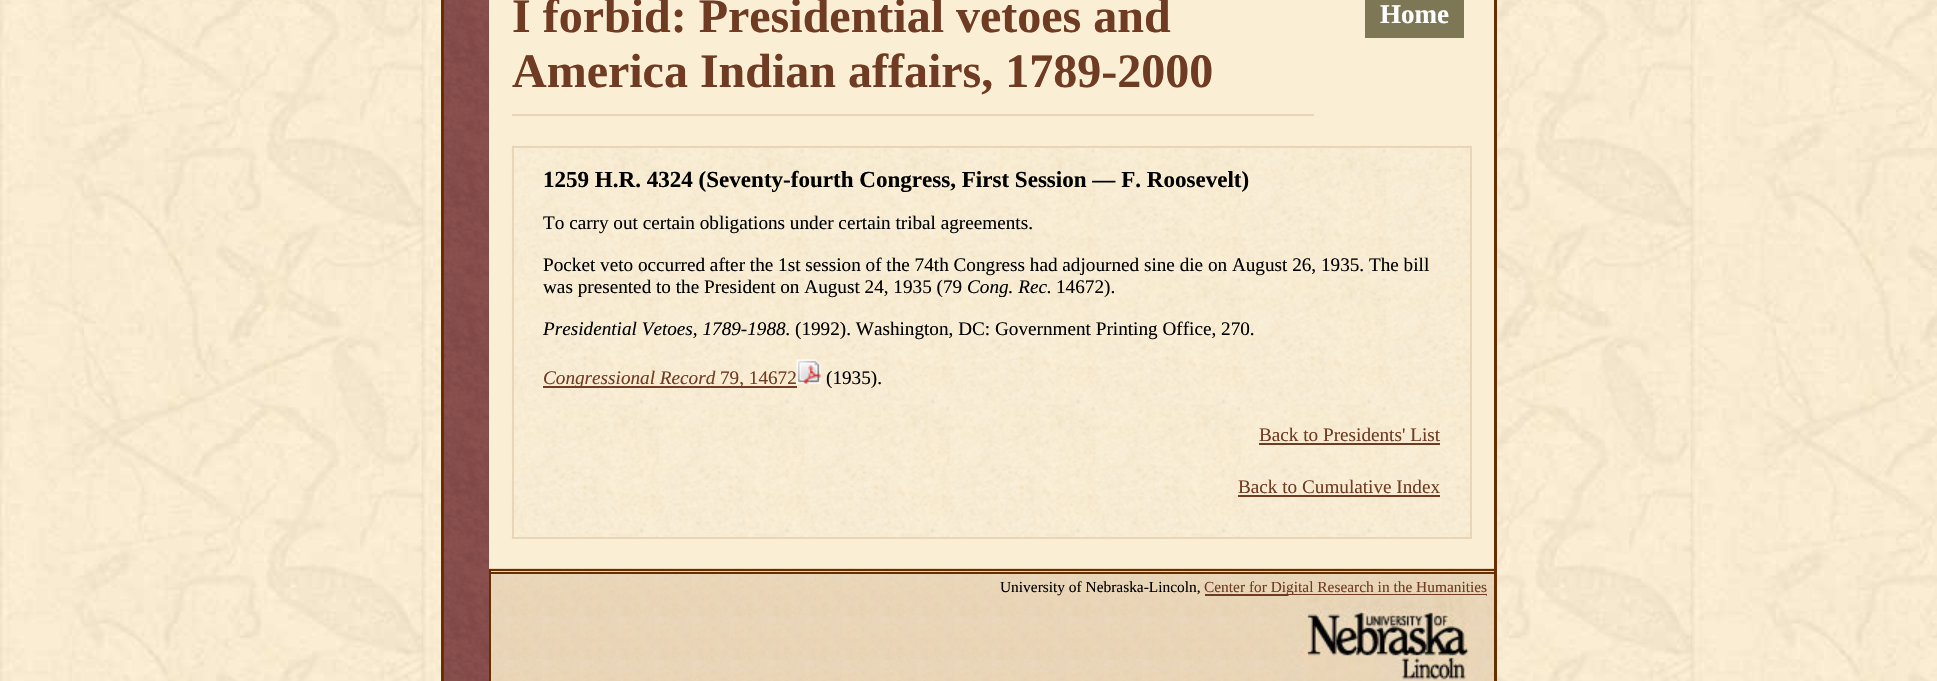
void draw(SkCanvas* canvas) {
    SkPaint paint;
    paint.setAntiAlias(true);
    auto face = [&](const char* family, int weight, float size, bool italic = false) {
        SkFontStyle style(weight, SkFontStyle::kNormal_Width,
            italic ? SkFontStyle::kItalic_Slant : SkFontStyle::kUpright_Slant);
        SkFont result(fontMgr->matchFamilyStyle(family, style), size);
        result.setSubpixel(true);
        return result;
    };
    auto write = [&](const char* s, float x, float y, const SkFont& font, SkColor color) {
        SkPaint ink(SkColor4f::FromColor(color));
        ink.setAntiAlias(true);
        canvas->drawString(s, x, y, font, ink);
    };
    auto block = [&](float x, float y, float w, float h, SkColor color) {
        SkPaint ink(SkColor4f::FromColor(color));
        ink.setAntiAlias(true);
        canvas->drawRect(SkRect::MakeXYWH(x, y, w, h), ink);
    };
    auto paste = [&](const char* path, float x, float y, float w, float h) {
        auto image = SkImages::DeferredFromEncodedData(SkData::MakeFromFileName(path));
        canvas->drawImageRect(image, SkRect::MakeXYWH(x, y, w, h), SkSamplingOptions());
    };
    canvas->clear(SK_ColorWHITE);
    paste("pic1.png", 0, 0, 1937, 681);
    block(489, 0, 1005, 568, SkColorSetRGB(250, 238, 213));
    paste("pic2.png", 444, 0, 45, 681);
    paint.setStyle(SkPaint::kStroke_Style);
    paint.setStrokeWidth(3);
    paint.setColor(SkColorSetRGB(103, 46, 0));
    canvas->drawRect(SkRect::MakeXYWH(442.5f, -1.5f, 1053, 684), paint);
    block(512, 114, 802, 2, SkColorSetRGB(233, 214, 184));
    auto kFont1 = face("Liberation Serif", 700, 48);
    write("I forbid: Presidential vetoes and", 512, 32, kFont1, SkColorSetRGB(111, 59, 34));
    write("America Indian affairs, 1789-2000", 512, 87, kFont1, SkColorSetRGB(111, 59, 34));
    block(1365, 0, 99, 38, SkColorSetRGB(126, 119, 86));
    auto kFont2 = face("Liberation Serif", 700, 27);
    write("Home", 1380, 23, kFont2, SK_ColorWHITE);
    paste("pic3.png", 511, 145, 961, 393);
    paint.setStrokeWidth(2);
    paint.setColor(SkColorSetRGB(233, 214, 184));
    canvas->drawRect(SkRect::MakeXYWH(513, 147, 958, 391), paint);
    auto kFont3 = face("Liberation Serif", 700, 23.05f);
    write("1259 H.R. 4324 (Seventy-fourth Congress, First Session — F. Roosevelt)", 543, 187, kFont3, SK_ColorBLACK);
    auto kFont4 = face("Liberation Serif", 400, 19.2f);
    write("To carry out certain obligations under certain tribal agreements.", 543, 229, kFont4, SK_ColorBLACK);
    write("Pocket veto occurred after the 1st session of the 74th Congress had adjourned sine die on August 26, 1935. The bill", 543, 271, kFont4, SK_ColorBLACK);
    write("was presented to the President on August 24, 1935 (79", 543, 293, kFont4, SK_ColorBLACK);
    auto kFont5 = face("Liberation Serif", 400, 19.2f, true);
    write("Cong. Rec.", 967, 293, kFont5, SK_ColorBLACK);
    write("14672).", 1056, 293, kFont4, SK_ColorBLACK);
    write("Presidential Vetoes, 1789-1988.", 543, 335, kFont5, SK_ColorBLACK);
    write("(1992). Washington, DC: Government Printing Office, 270.", 795, 335, kFont4, SK_ColorBLACK);
    block(543, 386, 254, 2, SkColorSetRGB(111, 59, 34));
    write("Congressional Record", 543, 384, kFont5, SkColorSetRGB(111, 59, 34));
    write("79, 14672", 720, 384, kFont4, SkColorSetRGB(111, 59, 34));
    paste("pic4.png", 796, 359, 25, 25);
    write("(1935).", 826, 384, kFont4, SK_ColorBLACK);
    write("Back to Presidents' List", 1259, 441, kFont4, SkColorSetRGB(111, 59, 34));
    block(1259, 443, 181, 2, SkColorSetRGB(111, 59, 34));
    write("Back to Cumulative Index", 1238, 493, kFont4, SkColorSetRGB(111, 59, 34));
    block(1238, 495, 202, 2, SkColorSetRGB(111, 59, 34));
    paste("pic5.png", 489, 568, 1005, 113);
    block(489, 569, 1005, 2, SkColorSetRGB(103, 46, 0));
    block(489, 572, 1005, 2, SkColorSetRGB(103, 46, 0));
    block(489, 569, 2, 112, SkColorSetRGB(103, 46, 0));
    auto kFont6 = face("Liberation Serif", 400, 15.4f);
    write("University of Nebraska-Lincoln,", 1000, 592, kFont6, SK_ColorBLACK);
    block(1205, 594, 282, 2, SkColorSetRGB(111, 59, 34));
    write("Center for Digital Research in the Humanities", 1204, 592, kFont6, SkColorSetRGB(111, 59, 34));
    paste("pic6.png", 1288, 595, 199, 86);
}
